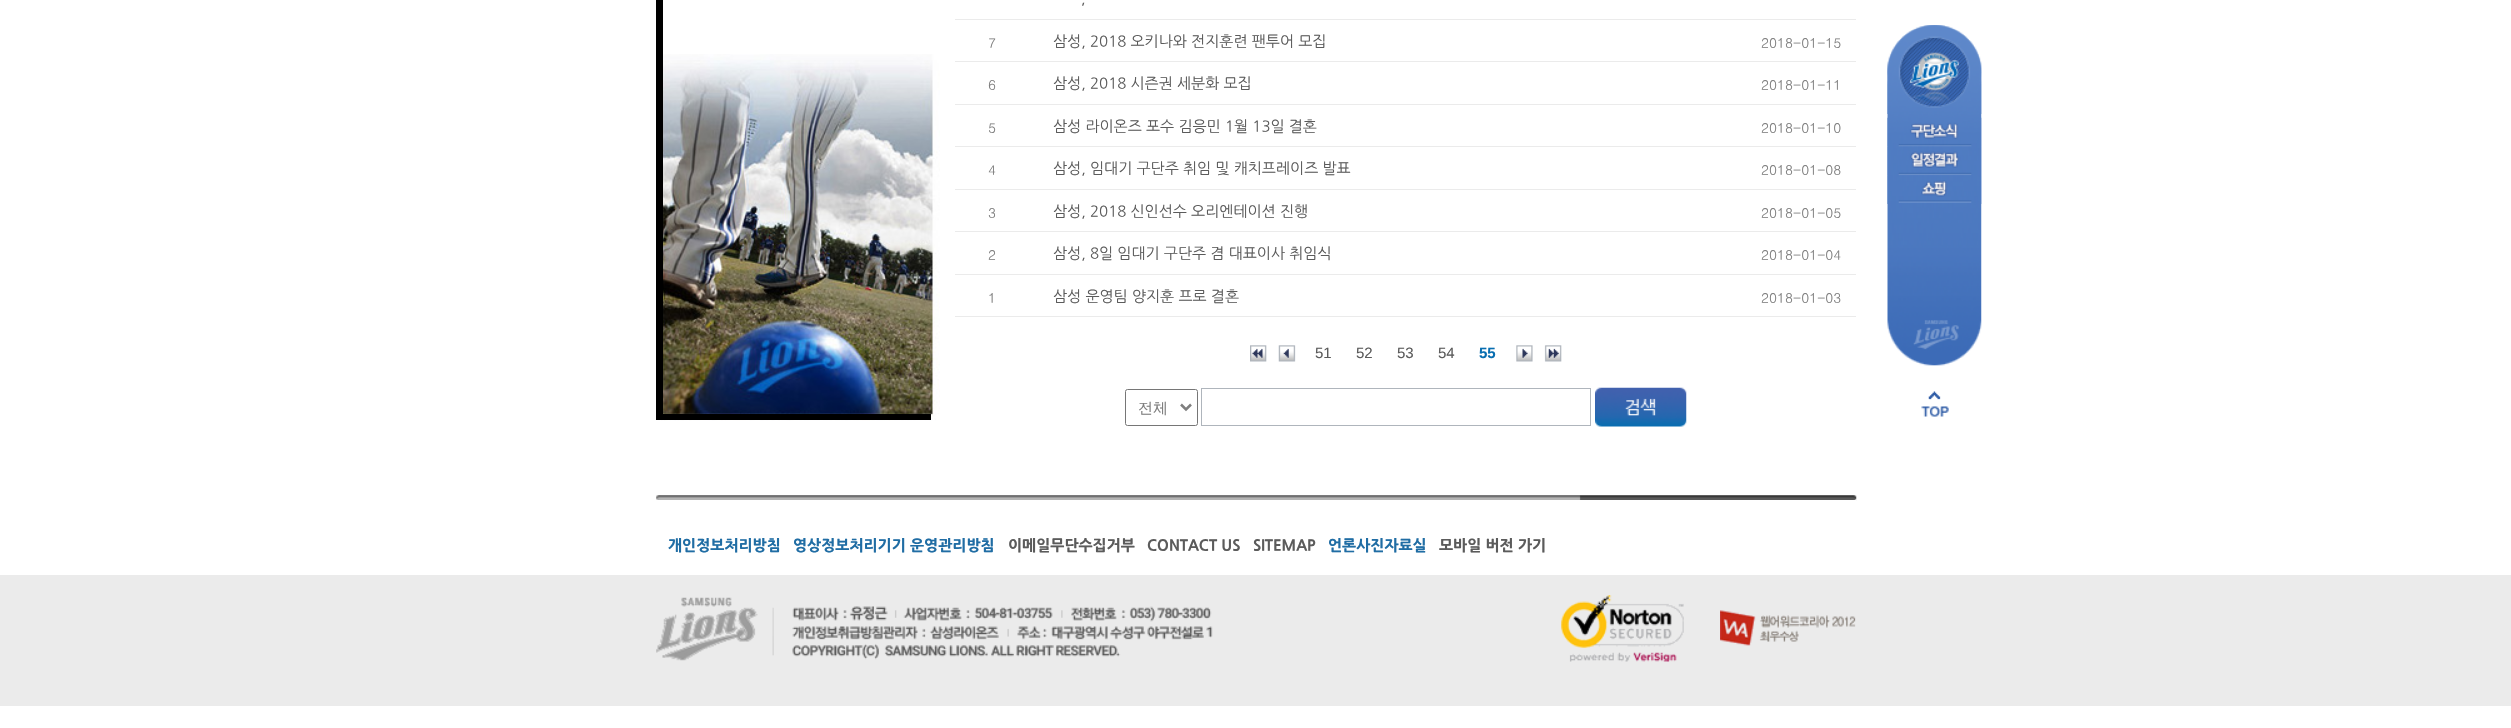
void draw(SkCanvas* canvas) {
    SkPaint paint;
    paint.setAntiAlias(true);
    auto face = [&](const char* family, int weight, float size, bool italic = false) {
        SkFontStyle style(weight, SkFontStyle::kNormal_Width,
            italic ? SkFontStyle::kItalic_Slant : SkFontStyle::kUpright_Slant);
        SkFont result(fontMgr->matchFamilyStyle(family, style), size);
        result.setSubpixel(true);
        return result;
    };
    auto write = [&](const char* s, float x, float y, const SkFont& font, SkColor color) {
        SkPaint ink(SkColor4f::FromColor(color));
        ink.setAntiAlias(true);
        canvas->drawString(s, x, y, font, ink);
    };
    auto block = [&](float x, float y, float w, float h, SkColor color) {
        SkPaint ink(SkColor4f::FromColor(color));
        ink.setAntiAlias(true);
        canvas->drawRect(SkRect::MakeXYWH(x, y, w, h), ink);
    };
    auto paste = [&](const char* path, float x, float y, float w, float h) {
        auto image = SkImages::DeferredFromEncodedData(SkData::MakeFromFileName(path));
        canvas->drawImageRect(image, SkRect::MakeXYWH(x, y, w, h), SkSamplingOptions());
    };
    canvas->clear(SK_ColorWHITE);
    paste("pic1.png", 656, 54, 284, 367);
    block(656, 414, 275, 6, SK_ColorBLACK);
    block(656, 0, 7, 420, SK_ColorBLACK);
    auto kFont1 = face("NanumGothic", 400, 15);
    write(",", 1081, 3, kFont1, SkColorSetRGB(91, 91, 91));
    block(955, 19, 901, 1, SkColorSetRGB(235, 235, 235));
    auto kFont2 = face("Dotum", 400, 13.75f);
    write("7", 988, 48, kFont2, SkColorSetRGB(126, 126, 126));
    write("삼성, 2018 오키나와 전지훈련 팬투어 모집", 1053, 46, kFont1, SkColorSetRGB(91, 91, 91));
    block(955, 61, 901, 1, SkColorSetRGB(235, 235, 235));
    write("2018-01-15", 1761, 48, kFont2, SkColorSetRGB(126, 126, 126));
    write("6", 988, 90, kFont2, SkColorSetRGB(126, 126, 126));
    write("삼성, 2018 시즌권 세분화 모집", 1053, 88, kFont1, SkColorSetRGB(91, 91, 91));
    block(955, 104, 901, 1, SkColorSetRGB(235, 235, 235));
    write("2018-01-11", 1761, 90, kFont2, SkColorSetRGB(126, 126, 126));
    write("5", 988, 133, kFont2, SkColorSetRGB(126, 126, 126));
    write("삼성 라이온즈 포수 김응민 1월 13일 결혼", 1053, 131, kFont1, SkColorSetRGB(91, 91, 91));
    block(955, 146, 901, 1, SkColorSetRGB(235, 235, 235));
    write("2018-01-10", 1761, 133, kFont2, SkColorSetRGB(126, 126, 126));
    write("4", 988, 175, kFont2, SkColorSetRGB(126, 126, 126));
    write("삼성, 임대기 구단주 취임 및 캐치프레이즈 발표", 1053, 173, kFont1, SkColorSetRGB(91, 91, 91));
    block(955, 189, 901, 1, SkColorSetRGB(235, 235, 235));
    write("2018-01-08", 1761, 175, kFont2, SkColorSetRGB(126, 126, 126));
    write("3", 988, 218, kFont2, SkColorSetRGB(126, 126, 126));
    write("삼성, 2018 신인선수 오리엔테이션 진행", 1053, 216, kFont1, SkColorSetRGB(91, 91, 91));
    block(955, 231, 901, 1, SkColorSetRGB(235, 235, 235));
    write("2018-01-05", 1761, 218, kFont2, SkColorSetRGB(126, 126, 126));
    write("2", 988, 260, kFont2, SkColorSetRGB(126, 126, 126));
    write("삼성, 8일 임대기 구단주 겸 대표이사 취임식", 1053, 258, kFont1, SkColorSetRGB(91, 91, 91));
    block(955, 274, 901, 1, SkColorSetRGB(235, 235, 235));
    write("2018-01-04", 1761, 260, kFont2, SkColorSetRGB(126, 126, 126));
    write("1", 988, 303, kFont2, SkColorSetRGB(126, 126, 126));
    write("삼성 운영팀 양지훈 프로 결혼", 1053, 301, kFont1, SkColorSetRGB(91, 91, 91));
    block(955, 316, 901, 1, SkColorSetRGB(235, 235, 235));
    write("2018-01-03", 1761, 303, kFont2, SkColorSetRGB(126, 126, 126));
    paste("pic2.png", 1250, 345, 17, 17);
    paste("pic3.png", 1278, 345, 18, 17);
    auto kFont3 = face("Liberation Sans", 400, 15);
    write("51", 1315, 358, kFont3, SkColorSetRGB(91, 91, 91));
    write("52", 1356, 358, kFont3, SkColorSetRGB(91, 91, 91));
    write("53", 1397, 358, kFont3, SkColorSetRGB(91, 91, 91));
    write("54", 1438, 358, kFont3, SkColorSetRGB(91, 91, 91));
    auto kFont4 = face("Liberation Sans", 700, 15);
    write("55", 1479, 358, kFont4, SkColorSetRGB(8, 110, 177));
    paste("pic4.png", 1516, 345, 17, 17);
    paste("pic5.png", 1544, 345, 18, 17);
    paint.setStyle(SkPaint::kStroke_Style);
    paint.setStrokeWidth(1);
    paint.setColor(SkColorSetRGB(118, 118, 118));
    canvas->drawRoundRect(SkRect::MakeXYWH(1125.5f, 389.5f, 72, 36), 2, 2, paint);
    paint.setStrokeWidth(2.5f);
    paint.setColor(SkColorSetRGB(126, 126, 126));
    canvas->drawPath(SkPathBuilder().moveTo(1181, 404.5f).lineTo(1186, 409.5f).lineTo(1191, 404.5f).detach(), paint);
    auto kFont5 = face("WenQuanYi Zen Hei", 500, 15);
    write("전체", 1138, 413, kFont5, SkColorSetRGB(126, 126, 126));
    paint.setStrokeWidth(1);
    paint.setColor(SkColorSetRGB(175, 181, 188));
    canvas->drawRect(SkRect::MakeXYWH(1201.5f, 388.5f, 389, 37), paint);
    paste("pic6.png", 1595, 387, 92, 40);
    paste("pic7.png", 1887, 25, 95, 341);
    paste("pic9.png", 1909, 52, 50, 52);
    paste("pic8.png", 1887, 25, 95, 89);
    paste("pic10.png", 1887, 117, 95, 30);
    paste("pic11.png", 1887, 146, 95, 30);
    paste("pic12.png", 1887, 175, 95, 29);
    paste("pic13.png", 1921, 391, 28, 26);
    paste("pic14.png", 656, 495, 1201, 6);
    block(656, 500, 1200, 1, SK_ColorWHITE);
    auto kFont6 = face("NanumGothic", 800, 15);
    write("개인정보처리방침", 668, 550, kFont6, SkColorSetRGB(32, 109, 164));
    write("영상정보처리기기 운영관리방침", 793, 550, kFont6, SkColorSetRGB(32, 109, 164));
    write("이메일무단수집거부", 1008, 550, kFont6, SkColorSetRGB(91, 91, 91));
    write("CONTACT US", 1147, 550, kFont6, SkColorSetRGB(91, 91, 91));
    write("SITEMAP", 1253, 550, kFont6, SkColorSetRGB(91, 91, 91));
    write("언론사진자료실", 1328, 550, kFont6, SkColorSetRGB(32, 109, 164));
    write("모바일 버전 가기", 1439, 550, kFont6, SkColorSetRGB(91, 91, 91));
    block(0, 575, 2511, 131, SkColorSetRGB(235, 235, 235));
    paste("pic15.png", 656, 597, 557, 64);
    paste("pic16.png", 1561, 595, 123, 67);
    paste("pic17.png", 1720, 610, 136, 36);
}
